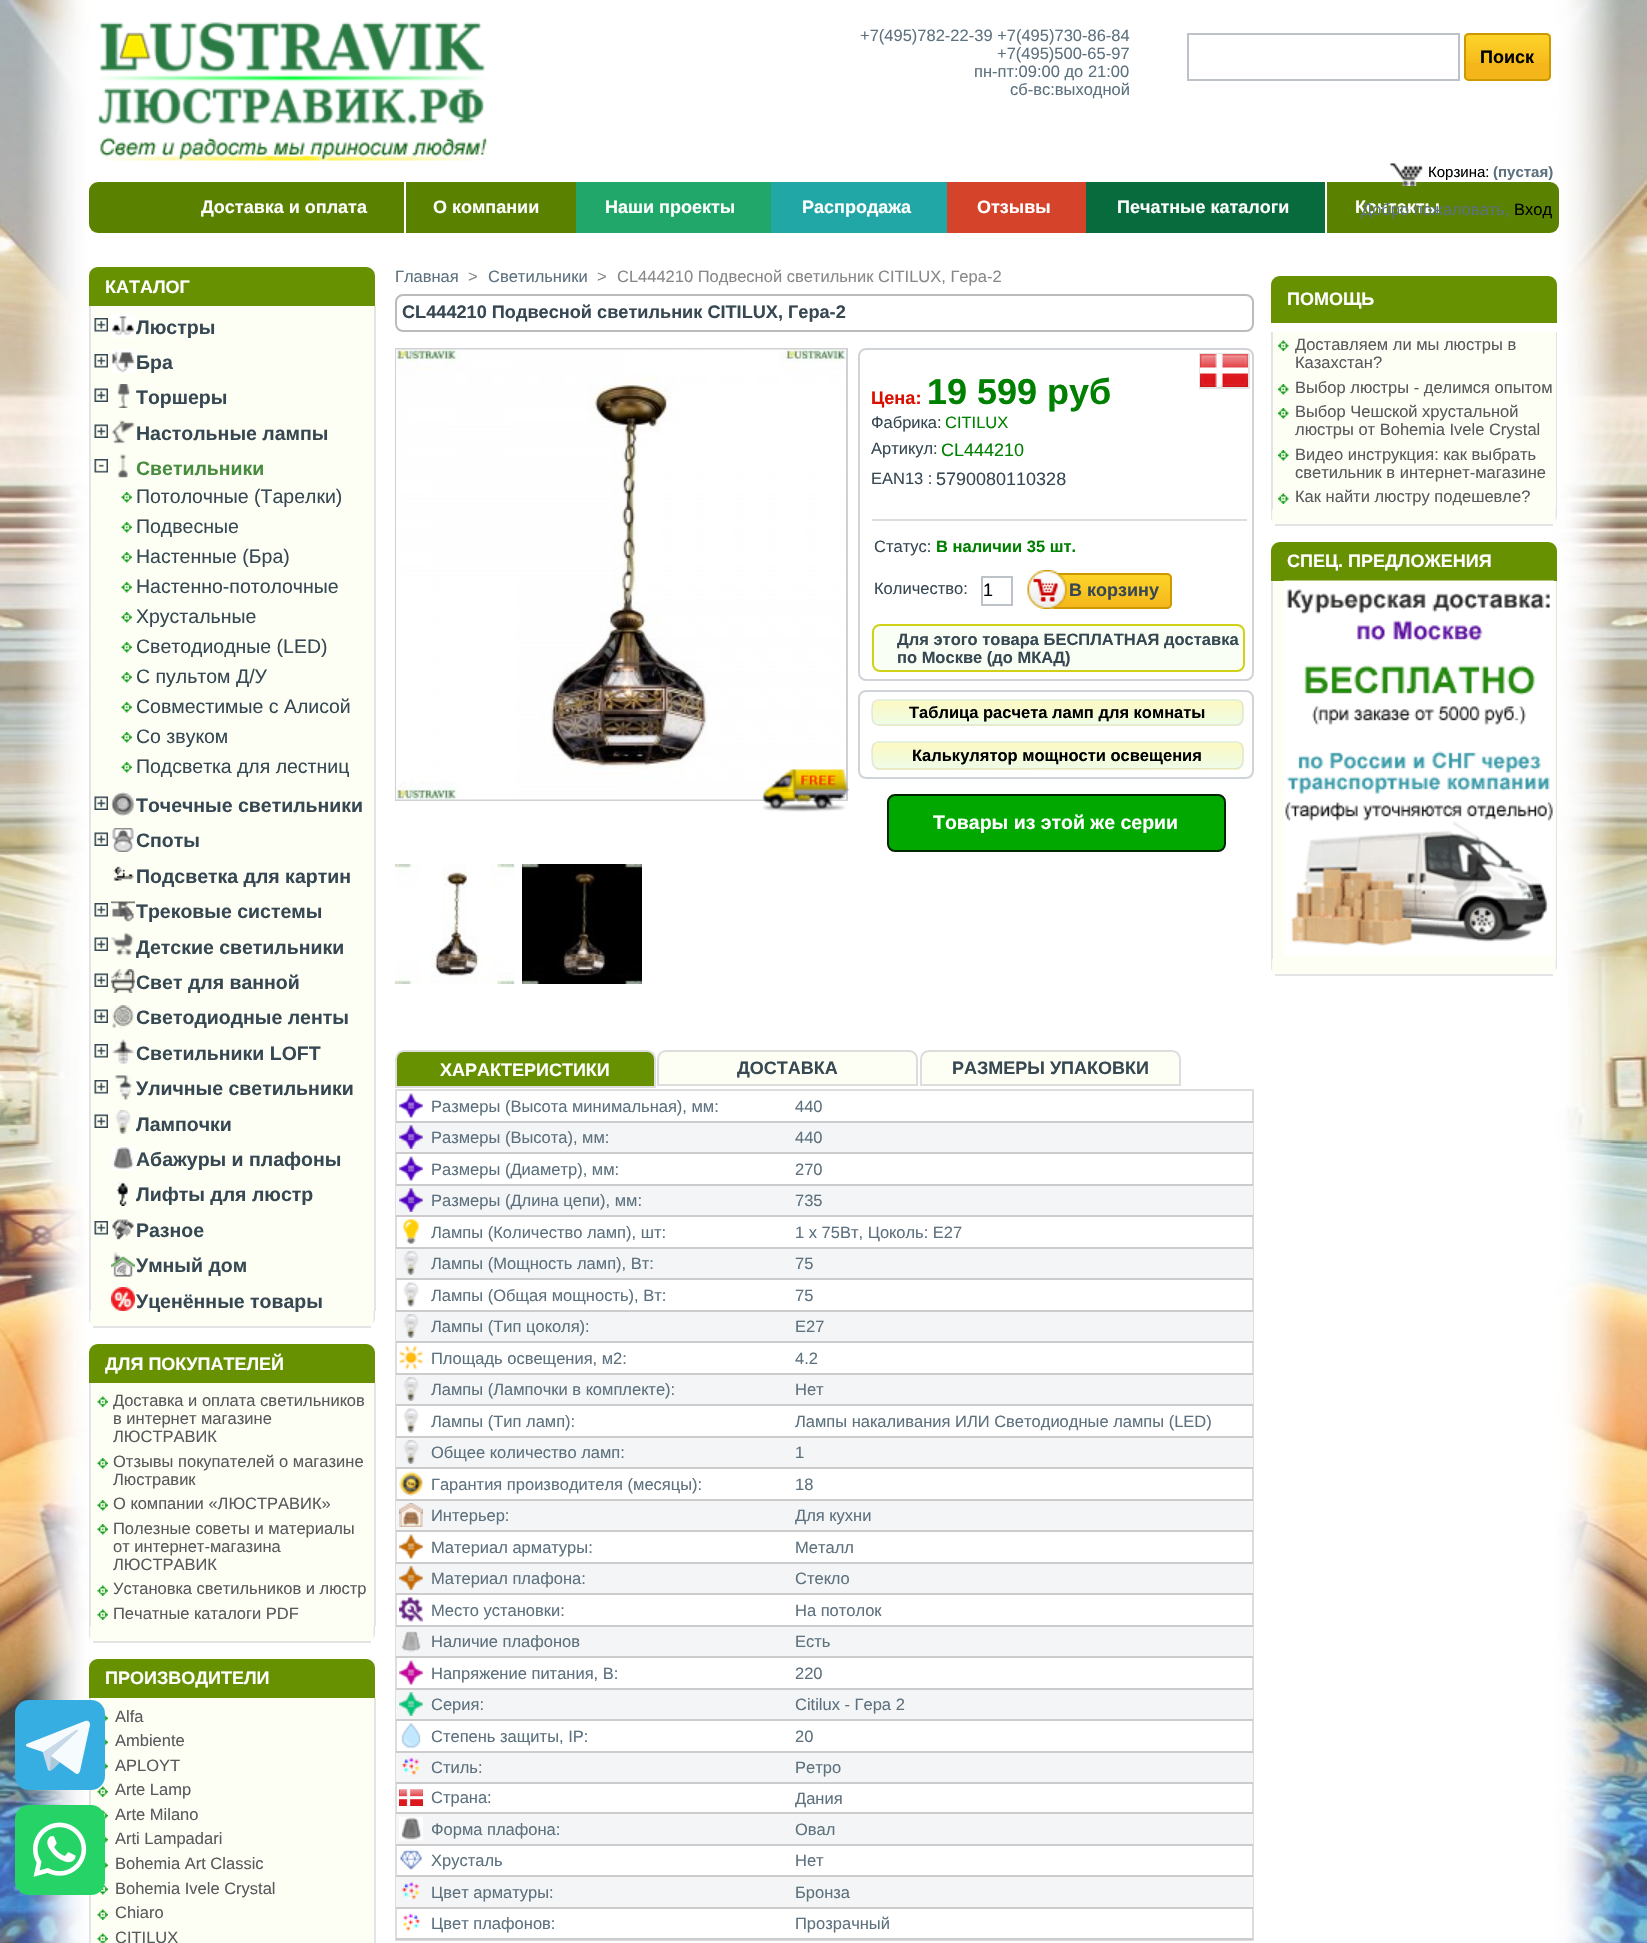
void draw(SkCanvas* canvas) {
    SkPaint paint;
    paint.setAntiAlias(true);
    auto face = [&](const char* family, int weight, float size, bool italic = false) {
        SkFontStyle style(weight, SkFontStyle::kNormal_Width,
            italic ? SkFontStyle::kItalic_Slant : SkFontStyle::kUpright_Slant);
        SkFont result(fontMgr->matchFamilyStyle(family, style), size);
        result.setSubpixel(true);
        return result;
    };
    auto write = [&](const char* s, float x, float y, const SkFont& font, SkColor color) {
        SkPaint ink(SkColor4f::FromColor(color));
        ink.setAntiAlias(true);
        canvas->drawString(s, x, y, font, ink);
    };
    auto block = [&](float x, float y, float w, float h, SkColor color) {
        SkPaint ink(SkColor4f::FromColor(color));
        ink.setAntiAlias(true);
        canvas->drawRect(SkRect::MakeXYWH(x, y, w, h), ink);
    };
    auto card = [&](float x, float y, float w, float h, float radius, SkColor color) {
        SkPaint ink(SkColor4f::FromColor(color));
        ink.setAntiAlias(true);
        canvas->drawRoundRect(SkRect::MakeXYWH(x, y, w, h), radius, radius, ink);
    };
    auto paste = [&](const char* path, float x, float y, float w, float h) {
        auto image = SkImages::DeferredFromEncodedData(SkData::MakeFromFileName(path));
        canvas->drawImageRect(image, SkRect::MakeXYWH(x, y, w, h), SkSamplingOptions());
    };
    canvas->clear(SK_ColorWHITE);
    paste("pic1.png", 0, 0, 1647, 1943);
    block(91, 1698, 283, 245, SkColorSetRGB(253, 255, 244));
    block(89, 1698, 2, 245, SkColorSetRGB(228, 228, 228));
    paste("pic31.png", 97, 1786, 11, 11);
    card(15, 1700, 90, 90, 14, SkColorSetRGB(55, 174, 226));
    paint.setColor(SkColorSetRGB(200, 218, 234));
    canvas->drawPath(SkPathBuilder().moveTo(50, 1771).lineTo(48, 1770).lineTo(42, 1750).lineTo(85, 1724).detach(), paint);
    paint.setColor(SkColorSetRGB(169, 201, 221));
    canvas->drawPath(SkPathBuilder().moveTo(50, 1770.5f).cubicTo(52.5f, 1770.5f, 59, 1763.5f, 60.5f, 1761.5f).lineTo(51, 1755.5f).detach(), paint);
    paint.setColor(SkColorSetRGB(246, 251, 254));
    canvas->drawPath(SkPathBuilder().moveTo(51, 1756).lineTo(75, 1773).cubicTo(77, 1775, 79, 1774, 80, 1771).lineTo(90, 1725).cubicTo(90, 1721, 88, 1720, 85, 1721).lineTo(29, 1743).cubicTo(25, 1744, 25, 1746, 28, 1747).lineTo(43, 1752).lineTo(76, 1730).cubicTo(78, 1730, 79, 1730, 78, 1731).detach(), paint);
    paste("pic2.png", 98, 22, 389, 139);
    auto kFont1 = face("Liberation Sans", 400, 16.5f);
    write("+7(495)782-22-39 +7(495)730-86-84", 860, 41, kFont1, SkColorSetRGB(93, 113, 126));
    write("+7(495)500-65-97", 997, 59, kFont1, SkColorSetRGB(93, 113, 126));
    write("пн-пт:09:00 до 21:00", 974, 77, kFont1, SkColorSetRGB(93, 113, 126));
    write("сб-вс:выходной", 1010, 95, kFont1, SkColorSetRGB(93, 113, 126));
    paint.setStyle(SkPaint::kStroke_Style);
    paint.setStrokeWidth(2);
    paint.setColor(SkColorSetRGB(189, 194, 201));
    canvas->drawRect(SkRect::MakeXYWH(1188, 34, 271, 46), paint);
    card(1464, 33, 87, 48, 5, SkColorSetRGB(244, 182, 27));
    paste("pic3.png", 1464, 34, 87, 29);
    paint.setColor(SkColorSetRGB(204, 153, 0));
    canvas->drawRoundRect(SkRect::MakeXYWH(1465, 34, 85, 46), 4, 4, paint);
    auto kFont2 = face("Liberation Sans", 700, 18);
    write("Поиск", 1480, 63, kFont2, SK_ColorBLACK);
    card(89, 182, 1470, 51, 9, SkColorSetRGB(90, 130, 0));
    paste("pic4.png", 1390, 163, 33, 23);
    auto kFont3 = face("Liberation Sans", 400, 15);
    write("Корзина:", 1428, 177, kFont3, SK_ColorBLACK);
    auto kFont4 = face("Liberation Sans", 700, 15);
    write("(пустая)", 1493, 177, kFont4, SkColorSetRGB(93, 113, 126));
    write("Контакты", 1355, 213, kFont2, SK_ColorWHITE);
    write("Добро пожаловать,", 1361, 215, kFont1, SkColorSetRGB(93, 113, 126));
    write("Вход", 1514, 215, kFont1, SK_ColorBLACK);
    block(404, 182, 2, 51, SK_ColorWHITE);
    write("Доставка и оплата", 201, 213, kFont2, SK_ColorWHITE);
    write("О компании", 433, 213, kFont2, SK_ColorWHITE);
    block(576, 182, 195, 51, SkColorSetRGB(34, 167, 106));
    write("Наши проекты", 605, 213, kFont2, SK_ColorWHITE);
    block(771, 182, 176, 51, SkColorSetRGB(34, 167, 167));
    write("Распродажа", 802, 213, kFont2, SK_ColorWHITE);
    block(947, 182, 139, 51, SkColorSetRGB(213, 67, 43));
    write("Отзывы", 977, 213, kFont2, SK_ColorWHITE);
    block(1086, 182, 239, 51, SkColorSetRGB(8, 107, 61));
    block(1325, 182, 2, 51, SK_ColorWHITE);
    write("Печатные каталоги", 1117, 213, kFont2, SK_ColorWHITE);
    paste("pic5.png", 89, 1311, 286, 15);
    block(93, 1326, 278, 2, SkColorSetRGB(228, 228, 228));
    paint.setStyle(SkPaint::kFill_Style);
    paint.setColor(SkColorSetRGB(103, 145, 0));
    canvas->drawPath(SkPathBuilder().moveTo(98, 267).lineTo(366, 267).cubicTo(371, 267, 375, 271, 375, 276).lineTo(375, 306).lineTo(89, 306).lineTo(89, 276).cubicTo(89, 271, 93, 267, 98, 267).close().detach(), paint);
    write("КАТАЛОГ", 105, 293, kFont2, SK_ColorWHITE);
    block(91, 306, 283, 1005, SkColorSetRGB(253, 255, 244));
    block(374, 306, 2, 1005, SkColorSetRGB(228, 228, 228));
    block(89, 306, 2, 1005, SkColorSetRGB(228, 228, 228));
    paste("pic6.png", 94, 318, 14, 14);
    paste("pic7.png", 111, 313, 24, 25);
    auto kFont5 = face("Liberation Sans", 700, 19.5f);
    write("Люстры", 136, 334, kFont5, SkColorSetRGB(55, 72, 83));
    paste("pic6.png", 94, 354, 14, 14);
    paste("pic8.png", 111, 349, 24, 25);
    write("Бра", 136, 369, kFont5, SkColorSetRGB(55, 72, 83));
    paste("pic9.png", 94, 388, 14, 14);
    paste("pic10.png", 117, 384, 13, 24);
    write("Торшеры", 136, 404, kFont5, SkColorSetRGB(55, 72, 83));
    paste("pic9.png", 94, 424, 14, 14);
    paste("pic11.png", 111, 420, 24, 24);
    write("Настольные лампы", 136, 440, kFont5, SkColorSetRGB(55, 72, 83));
    paste("pic12.png", 94, 459, 14, 14);
    paste("pic13.png", 118, 454, 10, 24);
    write("Светильники", 136, 475, kFont5, SkColorSetRGB(72, 140, 64));
    paste("pic14.png", 121, 492, 11, 11);
    auto kFont6 = face("Liberation Sans", 400, 19.5f);
    write("Потолочные (Тарелки)", 136, 503, kFont6, SkColorSetRGB(55, 72, 83));
    paste("pic14.png", 121, 522, 11, 11);
    write("Подвесные", 136, 533, kFont6, SkColorSetRGB(55, 72, 83));
    paste("pic14.png", 121, 552, 11, 11);
    write("Настенные (Бра)", 136, 563, kFont6, SkColorSetRGB(55, 72, 83));
    paste("pic14.png", 121, 582, 11, 11);
    write("Настенно-потолочные", 136, 593, kFont6, SkColorSetRGB(55, 72, 83));
    paste("pic14.png", 121, 612, 11, 11);
    write("Хрустальные", 136, 623, kFont6, SkColorSetRGB(55, 72, 83));
    paste("pic14.png", 121, 642, 11, 11);
    write("Светодиодные (LED)", 136, 653, kFont6, SkColorSetRGB(55, 72, 83));
    paste("pic14.png", 121, 672, 11, 11);
    write("С пультом Д/У", 136, 683, kFont6, SkColorSetRGB(55, 72, 83));
    paste("pic14.png", 121, 702, 11, 11);
    write("Совместимые с Алисой", 136, 713, kFont6, SkColorSetRGB(55, 72, 83));
    paste("pic14.png", 121, 732, 11, 11);
    write("Со звуком", 136, 743, kFont6, SkColorSetRGB(55, 72, 83));
    paste("pic14.png", 121, 762, 11, 11);
    write("Подсветка для лестниц", 136, 773, kFont6, SkColorSetRGB(55, 72, 83));
    paste("pic9.png", 94, 796, 14, 14);
    paste("pic15.png", 111, 792, 24, 24);
    write("Точечные светильники", 136, 812, kFont5, SkColorSetRGB(55, 72, 83));
    paste("pic9.png", 94, 832, 14, 14);
    paste("pic16.png", 111, 828, 24, 24);
    write("Споты", 136, 847, kFont5, SkColorSetRGB(55, 72, 83));
    paste("pic17.png", 113, 866, 21, 15);
    write("Подсветка для картин", 136, 883, kFont5, SkColorSetRGB(55, 72, 83));
    paste("pic6.png", 94, 903, 14, 14);
    paste("pic18.png", 111, 901, 24, 21);
    write("Трековые системы", 136, 918, kFont5, SkColorSetRGB(55, 72, 83));
    paste("pic9.png", 94, 937, 14, 14);
    paste("pic19.png", 111, 933, 23, 23);
    write("Детские светильники", 136, 954, kFont5, SkColorSetRGB(55, 72, 83));
    paste("pic9.png", 94, 973, 14, 14);
    paste("pic20.png", 111, 969, 24, 24);
    write("Свет для ванной", 136, 989, kFont5, SkColorSetRGB(55, 72, 83));
    paste("pic9.png", 94, 1009, 14, 14);
    paste("pic21.png", 111, 1005, 23, 24);
    write("Светодиодные ленты", 136, 1024, kFont5, SkColorSetRGB(55, 72, 83));
    paste("pic6.png", 94, 1044, 14, 14);
    paste("pic22.png", 112, 1039, 23, 25);
    write("Светильники LOFT", 136, 1060, kFont5, SkColorSetRGB(55, 72, 83));
    paste("pic6.png", 94, 1080, 14, 14);
    paste("pic23.png", 115, 1075, 18, 25);
    write("Уличные светильники", 136, 1095, kFont5, SkColorSetRGB(55, 72, 83));
    paste("pic9.png", 94, 1114, 14, 14);
    paste("pic24.png", 115, 1110, 16, 24);
    write("Лампочки", 136, 1131, kFont5, SkColorSetRGB(55, 72, 83));
    paste("pic25.png", 111, 1146, 24, 24);
    write("Абажуры и плафоны", 136, 1166, kFont5, SkColorSetRGB(55, 72, 83));
    paste("pic26.png", 116, 1182, 12, 24);
    write("Лифты для люстр", 136, 1201, kFont5, SkColorSetRGB(55, 72, 83));
    paste("pic6.png", 94, 1221, 14, 14);
    paste("pic27.png", 112, 1219, 22, 21);
    write("Разное", 136, 1237, kFont5, SkColorSetRGB(55, 72, 83));
    paste("pic28.png", 111, 1252, 24, 25);
    write("Умный дом", 136, 1272, kFont5, SkColorSetRGB(55, 72, 83));
    paste("pic29.png", 111, 1287, 24, 24);
    write("Уценённые товары", 136, 1308, kFont5, SkColorSetRGB(55, 72, 83));
    paste("pic30.png", 89, 1626, 286, 15);
    block(93, 1641, 278, 2, SkColorSetRGB(228, 228, 228));
    canvas->drawPath(SkPathBuilder().moveTo(98, 1344).lineTo(366, 1344).cubicTo(371, 1344, 375, 1348, 375, 1353).lineTo(375, 1383).lineTo(89, 1383).lineTo(89, 1353).cubicTo(89, 1348, 93, 1344, 98, 1344).close().detach(), paint);
    write("ДЛЯ ПОКУПАТЕЛЕЙ", 105, 1370, kFont2, SK_ColorWHITE);
    block(91, 1383, 283, 243, SkColorSetRGB(253, 255, 244));
    block(374, 1383, 2, 243, SkColorSetRGB(228, 228, 228));
    block(89, 1383, 2, 243, SkColorSetRGB(228, 228, 228));
    paste("pic31.png", 97, 1396, 11, 11);
    write("Доставка и оплата светильников", 113, 1406, kFont1, SkColorSetRGB(89, 90, 94));
    write("в интернет магазине", 113, 1424, kFont1, SkColorSetRGB(89, 90, 94));
    write("ЛЮСТРАВИК", 113, 1442, kFont1, SkColorSetRGB(89, 90, 94));
    paste("pic14.png", 97, 1458, 11, 11);
    write("Отзывы покупателей о магазине", 113, 1467, kFont1, SkColorSetRGB(89, 90, 94));
    write("Люстравик", 113, 1485, kFont1, SkColorSetRGB(89, 90, 94));
    paste("pic14.png", 97, 1500, 11, 11);
    write("О компании «ЛЮСТРАВИК»", 113, 1509, kFont1, SkColorSetRGB(89, 90, 94));
    paste("pic14.png", 97, 1524, 11, 11);
    write("Полезные советы и материалы", 113, 1534, kFont1, SkColorSetRGB(89, 90, 94));
    write("от интернет-магазина", 113, 1552, kFont1, SkColorSetRGB(89, 90, 94));
    write("ЛЮСТРАВИК", 113, 1570, kFont1, SkColorSetRGB(89, 90, 94));
    paste("pic31.png", 97, 1585, 11, 11);
    write("Установка светильников и люстр", 113, 1594, kFont1, SkColorSetRGB(89, 90, 94));
    paste("pic31.png", 97, 1609, 11, 11);
    write("Печатные каталоги PDF", 113, 1619, kFont1, SkColorSetRGB(89, 90, 94));
    canvas->drawPath(SkPathBuilder().moveTo(98, 1659).lineTo(366, 1659).cubicTo(371, 1659, 375, 1663, 375, 1668).lineTo(375, 1698).lineTo(89, 1698).lineTo(89, 1668).cubicTo(89, 1663, 93, 1659, 98, 1659).close().detach(), paint);
    write("ПРОИЗВОДИТЕЛИ", 105, 1684, kFont2, SK_ColorWHITE);
    block(374, 1698, 2, 245, SkColorSetRGB(228, 228, 228));
    paste("pic32.png", 105, 1714, 3, 9);
    write("Alfa", 115, 1722, kFont1, SkColorSetRGB(89, 90, 94));
    paste("pic32.png", 105, 1738, 3, 9);
    write("Ambiente", 115, 1746, kFont1, SkColorSetRGB(89, 90, 94));
    paste("pic32.png", 105, 1762, 3, 9);
    write("APLOYT", 115, 1771, kFont1, SkColorSetRGB(89, 90, 94));
    write("Arte Lamp", 115, 1795, kFont1, SkColorSetRGB(89, 90, 94));
    paste("pic33.png", 101, 1810, 7, 10);
    write("Arte Milano", 115, 1820, kFont1, SkColorSetRGB(89, 90, 94));
    paste("pic34.png", 105, 1836, 3, 8);
    write("Arti Lampadari", 115, 1844, kFont1, SkColorSetRGB(89, 90, 94));
    paste("pic32.png", 105, 1861, 3, 9);
    write("Bohemia Art Classic", 115, 1869, kFont1, SkColorSetRGB(89, 90, 94));
    paste("pic35.png", 99, 1885, 9, 10);
    write("Bohemia Ivele Crystal", 115, 1894, kFont1, SkColorSetRGB(89, 90, 94));
    paste("pic31.png", 97, 1909, 11, 11);
    write("Chiaro", 115, 1918, kFont1, SkColorSetRGB(89, 90, 94));
    paste("pic36.png", 97, 1933, 11, 10);
    write("CITILUX", 115, 1943, kFont1, SkColorSetRGB(89, 90, 94));
    write("Главная", 395, 282, kFont1, SkColorSetRGB(93, 113, 126));
    write(">", 468, 282, kFont1, SkColorSetRGB(136, 136, 136));
    write("Светильники", 488, 282, kFont1, SkColorSetRGB(93, 113, 126));
    write(">", 597, 282, kFont1, SkColorSetRGB(136, 136, 136));
    write("CL444210 Подвесной светильник CITILUX, Гера-2", 617, 282, kFont1, SkColorSetRGB(136, 136, 136));
    paint.setStyle(SkPaint::kStroke_Style);
    paint.setColor(SkColorSetRGB(187, 187, 187));
    canvas->drawRoundRect(SkRect::MakeXYWH(396, 295, 857, 36), 7, 7, paint);
    auto kFont7 = face("Liberation Sans", 700, 18.15f);
    write("CL444210 Подвесной светильник CITILUX, Гера-2", 402, 318, kFont7, SkColorSetRGB(55, 72, 83));
    paint.setColor(SkColorSetRGB(208, 209, 213));
    canvas->drawRect(SkRect::MakeXYWH(396, 349, 451, 451), paint);
    paste("pic37.png", 396, 349, 450, 451);
    paste("pic38.png", 762, 769, 87, 43);
    paint.setColor(SkColorSetRGB(208, 211, 216));
    canvas->drawRoundRect(SkRect::MakeXYWH(859, 349, 394, 331), 7, 7, paint);
    paint.setColor(SkColorSetRGB(228, 228, 228));
    canvas->drawRect(SkRect::MakeXYWH(1200, 354, 49, 34), paint);
    paste("pic39.png", 1200, 354, 48, 33);
    write("Цена:", 871, 404, kFont7, SkColorSetRGB(218, 15, 0));
    auto kFont8 = face("Liberation Sans", 700, 36);
    write("19 599 руб", 927, 404, kFont8, SkColorSetRGB(0, 128, 0));
    write("Фабрика:", 871, 428, kFont1, SkColorSetRGB(55, 72, 83));
    write("CITILUX", 945, 428, kFont1, SkColorSetRGB(0, 128, 0));
    write("Артикул:", 871, 454, kFont1, SkColorSetRGB(55, 72, 83));
    auto kFont9 = face("Liberation Sans", 400, 18);
    write("CL444210", 941, 456, kFont9, SkColorSetRGB(0, 128, 0));
    write("EAN13 :", 871, 484, kFont1, SkColorSetRGB(55, 72, 83));
    write("5790080110328", 936, 485, kFont9, SkColorSetRGB(55, 72, 83));
    block(872, 519, 375, 2, SkColorSetRGB(221, 221, 221));
    write("Статус:", 874, 552, kFont1, SkColorSetRGB(55, 72, 83));
    auto kFont10 = face("Liberation Sans", 700, 16.5f);
    write("В наличии 35 шт.", 936, 552, kFont10, SkColorSetRGB(0, 128, 0));
    write("Количество:", 874, 594, kFont1, SkColorSetRGB(55, 72, 83));
    paint.setColor(SkColorSetRGB(189, 194, 201));
    canvas->drawRect(SkRect::MakeXYWH(982, 577, 30, 28), paint);
    write("1", 983, 596, kFont9, SK_ColorBLACK);
    paste("pic41.png", 1050, 574, 122, 35);
    paint.setColor(SkColorSetRGB(204, 153, 0));
    canvas->drawRoundRect(SkRect::MakeXYWH(1051, 574, 120, 34), 4, 4, paint);
    paste("pic40.png", 1027, 570, 40, 39);
    write("В корзину", 1069, 596, kFont2, SkColorSetRGB(55, 72, 83));
    paint.setStyle(SkPaint::kFill_Style);
    paint.setColor(SkColorSetRGB(249, 255, 245));
    canvas->drawRoundRect(SkRect::MakeXYWH(873, 625, 371, 46), 7, 7, paint);
    paint.setStyle(SkPaint::kStroke_Style);
    paint.setColor(SkColorSetRGB(209, 209, 24));
    canvas->drawRoundRect(SkRect::MakeXYWH(873, 625, 371, 46), 7, 7, paint);
    write("Для этого товара БЕСПЛАТНАЯ доставка", 897, 645, kFont10, SkColorSetRGB(55, 72, 83));
    write("по Москве (до МКАД)", 897, 663, kFont10, SkColorSetRGB(55, 72, 83));
    paint.setColor(SkColorSetRGB(208, 211, 216));
    canvas->drawRoundRect(SkRect::MakeXYWH(859, 691, 394, 87), 7, 7, paint);
    canvas->save();
    canvas->clipPath(SkPathBuilder().moveTo(880, 699).lineTo(1236, 699).cubicTo(1240.5f, 699, 1244, 702.5f, 1244, 707).lineTo(1244, 718).cubicTo(1244, 722.5f, 1240.5f, 726, 1236, 726).lineTo(880, 726).cubicTo(875.5f, 726, 872, 722.5f, 872, 718).lineTo(872, 707).cubicTo(872, 702.5f, 875.5f, 699, 880, 699).close().detach(), true);
    paint.setStyle(SkPaint::kFill_Style);
    {
        const SkColor colors[] = {SkColorSetRGB(252, 249, 194), SkColorSetRGB(239, 252, 231)};
        const float stops[] = {0, 1};
        const SkPoint ends[] = {{1058, 677}, {1058, 701}};
        paint.setShader(SkGradientShader::MakeLinear(ends, colors, stops, 2, SkTileMode::kClamp));
        paint.setAlpha(255);
    }
    canvas->drawRect(SkRect::MakeXYWH(872, 699, 372, 2), paint);
    {
        const SkColor colors[] = {SkColorSetRGB(252, 249, 194), SkColorSetRGB(239, 252, 231)};
        const float stops[] = {0, 1};
        const SkPoint ends[] = {{1058, 701}, {1058, 725}};
        paint.setShader(SkGradientShader::MakeLinear(ends, colors, stops, 2, SkTileMode::kClamp));
        paint.setAlpha(255);
    }
    canvas->drawRect(SkRect::MakeXYWH(872, 701, 372, 24), paint);
    {
        const SkColor colors[] = {SkColorSetRGB(252, 249, 194), SkColorSetRGB(239, 252, 231)};
        const float stops[] = {0, 1};
        const SkPoint ends[] = {{1058, 725}, {1058, 749}};
        paint.setShader(SkGradientShader::MakeLinear(ends, colors, stops, 2, SkTileMode::kClamp));
        paint.setAlpha(255);
    }
    canvas->drawRect(SkRect::MakeXYWH(872, 725, 372, 1), paint);
    canvas->restore();
    paint.setStyle(SkPaint::kStroke_Style);
    paint.setStrokeWidth(1.5f);
    paint.setShader(nullptr);
    paint.setColor(SkColorSetARGB(77, 197, 199, 195));
    canvas->drawPath(SkPathBuilder().moveTo(874, 701.5f).cubicTo(875.5f, 700.5f, 877, 700, 879, 700).lineTo(1236, 700).cubicTo(1238, 700, 1239.5f, 700.5f, 1241, 701.5f).detach(), paint);
    paint.setColor(SkColorSetARGB(102, 197, 199, 195));
    canvas->drawPath(SkPathBuilder().moveTo(1241, 701.5f).cubicTo(1243.5f, 704.5f, 1243, 709, 1243, 712.5f).cubicTo(1243, 717.5f, 1243.5f, 724.5f, 1236.5f, 725).lineTo(879, 725).cubicTo(877.5f, 725, 876, 724.5f, 874.5f, 723.5f).cubicTo(871.5f, 721, 872, 716.5f, 872, 712.5f).cubicTo(872, 709, 871.5f, 704.5f, 874, 701.5f).detach(), paint);
    write("Таблица расчета ламп для комнаты", 909, 718, kFont10, SK_ColorBLACK);
    canvas->save();
    canvas->clipPath(SkPathBuilder().moveTo(880, 741).lineTo(1236, 741).cubicTo(1240.5f, 741, 1244, 744.5f, 1244, 749).lineTo(1244, 762).cubicTo(1244, 766.5f, 1240.5f, 770, 1236, 770).lineTo(880, 770).cubicTo(875.5f, 770, 872, 766.5f, 872, 762).lineTo(872, 749).cubicTo(872, 744.5f, 875.5f, 741, 880, 741).close().detach(), true);
    paint.setStyle(SkPaint::kFill_Style);
    {
        const SkColor colors[] = {SkColorSetRGB(252, 249, 194), SkColorSetRGB(239, 252, 231)};
        const float stops[] = {0, 1};
        const SkPoint ends[] = {{1058, 717}, {1058, 743}};
        paint.setShader(SkGradientShader::MakeLinear(ends, colors, stops, 2, SkTileMode::kClamp));
        paint.setAlpha(255);
    }
    canvas->drawRect(SkRect::MakeXYWH(872, 741, 372, 2), paint);
    {
        const SkColor colors[] = {SkColorSetRGB(252, 249, 194), SkColorSetRGB(239, 252, 231)};
        const float stops[] = {0, 1};
        const SkPoint ends[] = {{1058, 743}, {1058, 768}};
        paint.setShader(SkGradientShader::MakeLinear(ends, colors, stops, 2, SkTileMode::kClamp));
        paint.setAlpha(255);
    }
    canvas->drawRect(SkRect::MakeXYWH(872, 743, 372, 25), paint);
    {
        const SkColor colors[] = {SkColorSetRGB(252, 249, 194), SkColorSetRGB(239, 252, 231)};
        const float stops[] = {0, 1};
        const SkPoint ends[] = {{1058, 768}, {1058, 794}};
        paint.setShader(SkGradientShader::MakeLinear(ends, colors, stops, 2, SkTileMode::kClamp));
        paint.setAlpha(255);
    }
    canvas->drawRect(SkRect::MakeXYWH(872, 768, 372, 2), paint);
    canvas->restore();
    paint.setStyle(SkPaint::kStroke_Style);
    paint.setShader(nullptr);
    paint.setColor(SkColorSetARGB(77, 197, 199, 195));
    canvas->drawPath(SkPathBuilder().moveTo(874, 743.5f).cubicTo(875.5f, 742.5f, 877, 742, 879, 742).lineTo(1236, 742).cubicTo(1238, 742, 1239.5f, 742.5f, 1241, 743.5f).detach(), paint);
    paint.setColor(SkColorSetARGB(102, 197, 199, 195));
    canvas->drawPath(SkPathBuilder().moveTo(1241, 743.5f).cubicTo(1243.5f, 746.5f, 1243, 751.5f, 1243, 755).cubicTo(1243, 760.5f, 1243.5f, 768, 1236.5f, 768.5f).lineTo(879, 769).cubicTo(872.5f, 768.5f, 872, 762.5f, 872, 757.5f).cubicTo(872, 753.5f, 871, 747, 874, 743.5f).detach(), paint);
    write("Калькулятор мощности освещения", 912, 761, kFont10, SK_ColorBLACK);
    paint.setStyle(SkPaint::kFill_Style);
    paint.setColor(SkColorSetRGB(0, 168, 0));
    canvas->drawRoundRect(SkRect::MakeXYWH(888, 795, 337, 56), 7, 7, paint);
    paint.setStyle(SkPaint::kStroke_Style);
    paint.setStrokeWidth(2);
    paint.setColor(SkColorSetRGB(0, 35, 0));
    canvas->drawRoundRect(SkRect::MakeXYWH(888, 795, 337, 56), 7, 7, paint);
    write("Товары из этой же серии", 933, 829, kFont5, SK_ColorWHITE);
    paste("pic42.png", 394, 864, 121, 120);
    paste("pic43.png", 522, 864, 120, 120);
    paint.setStyle(SkPaint::kFill_Style);
    paint.setColor(SkColorSetRGB(103, 145, 0));
    canvas->drawPath(SkPathBuilder().moveTo(404, 1051).lineTo(647, 1051).cubicTo(651.5f, 1051, 655, 1054.5f, 655, 1059).lineTo(655, 1087).lineTo(396, 1087).lineTo(396, 1059).cubicTo(396, 1054.5f, 399.5f, 1051, 404, 1051).close().detach(), paint);
    paint.setStyle(SkPaint::kStroke_Style);
    paint.setColor(SkColorSetRGB(221, 221, 221));
    canvas->drawPath(SkPathBuilder().moveTo(404, 1051).lineTo(647, 1051).cubicTo(651.5f, 1051, 655, 1054.5f, 655, 1059).lineTo(655, 1087).lineTo(396, 1087).lineTo(396, 1059).cubicTo(396, 1054.5f, 399.5f, 1051, 404, 1051).close().detach(), paint);
    write("ХАРАКТЕРИСТИКИ", 440, 1076, kFont2, SK_ColorWHITE);
    paint.setStyle(SkPaint::kFill_Style);
    paint.setColor(SkColorSetRGB(253, 255, 244));
    canvas->drawPath(SkPathBuilder().moveTo(666, 1051).lineTo(909, 1051).cubicTo(913.5f, 1051, 917, 1054.5f, 917, 1059).lineTo(917, 1085).lineTo(658, 1085).lineTo(658, 1059).cubicTo(658, 1054.5f, 661.5f, 1051, 666, 1051).close().detach(), paint);
    paint.setStyle(SkPaint::kStroke_Style);
    paint.setColor(SkColorSetRGB(221, 221, 221));
    canvas->drawPath(SkPathBuilder().moveTo(666, 1051).lineTo(909, 1051).cubicTo(913.5f, 1051, 917, 1054.5f, 917, 1059).lineTo(917, 1085).lineTo(658, 1085).lineTo(658, 1059).cubicTo(658, 1054.5f, 661.5f, 1051, 666, 1051).close().detach(), paint);
    write("ДОСТАВКА", 737, 1074, kFont2, SkColorSetRGB(55, 72, 83));
    paint.setStyle(SkPaint::kFill_Style);
    paint.setColor(SkColorSetRGB(253, 255, 244));
    canvas->drawPath(SkPathBuilder().moveTo(929, 1051).lineTo(1172, 1051).cubicTo(1176.5f, 1051, 1180, 1054.5f, 1180, 1059).lineTo(1180, 1085).lineTo(921, 1085).lineTo(921, 1059).cubicTo(921, 1054.5f, 924.5f, 1051, 929, 1051).close().detach(), paint);
    paint.setStyle(SkPaint::kStroke_Style);
    paint.setColor(SkColorSetRGB(221, 221, 221));
    canvas->drawPath(SkPathBuilder().moveTo(929, 1051).lineTo(1172, 1051).cubicTo(1176.5f, 1051, 1180, 1054.5f, 1180, 1059).lineTo(1180, 1085).lineTo(921, 1085).lineTo(921, 1059).cubicTo(921, 1054.5f, 924.5f, 1051, 929, 1051).close().detach(), paint);
    write("РАЗМЕРЫ УПАКОВКИ", 952, 1074, kFont2, SkColorSetRGB(55, 72, 83));
    canvas->drawRect(SkRect::MakeXYWH(396, 1090, 857, 850), paint);
    block(396, 1121, 857, 2, SkColorSetRGB(204, 204, 204));
    paste("pic44.png", 399, 1093, 24, 25);
    write("Размеры (Высота минимальная), мм:", 431, 1112, kFont1, SkColorSetRGB(93, 113, 126));
    write("440", 795, 1112, kFont1, SkColorSetRGB(93, 113, 126));
    block(396, 1123, 857, 29, SkColorSetRGB(244, 245, 246));
    block(396, 1152, 857, 2, SkColorSetRGB(204, 204, 204));
    paste("pic45.png", 399, 1125, 24, 24);
    write("Размеры (Высота), мм:", 431, 1143, kFont1, SkColorSetRGB(93, 113, 126));
    write("440", 795, 1143, kFont1, SkColorSetRGB(93, 113, 126));
    block(396, 1184, 857, 2, SkColorSetRGB(204, 204, 204));
    paste("pic44.png", 399, 1156, 24, 25);
    write("Размеры (Диаметр), мм:", 431, 1175, kFont1, SkColorSetRGB(93, 113, 126));
    write("270", 795, 1175, kFont1, SkColorSetRGB(93, 113, 126));
    block(396, 1186, 857, 29, SkColorSetRGB(244, 245, 246));
    block(396, 1215, 857, 2, SkColorSetRGB(204, 204, 204));
    paste("pic45.png", 399, 1188, 24, 24);
    write("Размеры (Длина цепи), мм:", 431, 1206, kFont1, SkColorSetRGB(93, 113, 126));
    write("735", 795, 1206, kFont1, SkColorSetRGB(93, 113, 126));
    block(396, 1247, 857, 2, SkColorSetRGB(204, 204, 204));
    paste("pic46.png", 403, 1219, 16, 25);
    write("Лампы (Количество ламп), шт:", 431, 1238, kFont1, SkColorSetRGB(93, 113, 126));
    write("1 x 75Вт, Цоколь: E27", 795, 1238, kFont1, SkColorSetRGB(93, 113, 126));
    block(396, 1249, 857, 29, SkColorSetRGB(244, 245, 246));
    block(396, 1278, 857, 2, SkColorSetRGB(204, 204, 204));
    paste("pic47.png", 403, 1251, 16, 24);
    write("Лампы (Мощность ламп), Вт:", 431, 1269, kFont1, SkColorSetRGB(93, 113, 126));
    write("75", 795, 1269, kFont1, SkColorSetRGB(93, 113, 126));
    block(396, 1310, 857, 2, SkColorSetRGB(204, 204, 204));
    paste("pic48.png", 403, 1282, 16, 25);
    write("Лампы (Общая мощность), Вт:", 431, 1301, kFont1, SkColorSetRGB(93, 113, 126));
    write("75", 795, 1301, kFont1, SkColorSetRGB(93, 113, 126));
    block(396, 1312, 857, 29, SkColorSetRGB(244, 245, 246));
    block(396, 1341, 857, 2, SkColorSetRGB(204, 204, 204));
    paste("pic47.png", 403, 1314, 16, 24);
    write("Лампы (Тип цоколя):", 431, 1332, kFont1, SkColorSetRGB(93, 113, 126));
    write("E27", 795, 1332, kFont1, SkColorSetRGB(93, 113, 126));
    block(396, 1373, 857, 2, SkColorSetRGB(204, 204, 204));
    paste("pic49.png", 399, 1345, 24, 25);
    write("Площадь освещения, м2:", 431, 1364, kFont1, SkColorSetRGB(93, 113, 126));
    write("4.2", 795, 1364, kFont1, SkColorSetRGB(93, 113, 126));
    block(396, 1375, 857, 29, SkColorSetRGB(244, 245, 246));
    block(396, 1404, 857, 2, SkColorSetRGB(204, 204, 204));
    paste("pic47.png", 403, 1377, 16, 24);
    write("Лампы (Лампочки в комплекте):", 431, 1395, kFont1, SkColorSetRGB(93, 113, 126));
    write("Нет", 795, 1395, kFont1, SkColorSetRGB(93, 113, 126));
    block(396, 1436, 857, 2, SkColorSetRGB(204, 204, 204));
    paste("pic48.png", 403, 1408, 16, 25);
    write("Лампы (Тип ламп):", 431, 1427, kFont1, SkColorSetRGB(93, 113, 126));
    write("Лампы накаливания ИЛИ Светодиодные лампы (LED)", 795, 1427, kFont1, SkColorSetRGB(93, 113, 126));
    block(396, 1438, 857, 29, SkColorSetRGB(244, 245, 246));
    block(396, 1467, 857, 2, SkColorSetRGB(204, 204, 204));
    paste("pic47.png", 403, 1440, 16, 24);
    write("Общее количество ламп:", 431, 1458, kFont1, SkColorSetRGB(93, 113, 126));
    write("1", 795, 1458, kFont1, SkColorSetRGB(93, 113, 126));
    block(396, 1499, 857, 2, SkColorSetRGB(204, 204, 204));
    paste("pic50.png", 399, 1471, 24, 25);
    write("Гарантия производителя (месяцы):", 431, 1490, kFont1, SkColorSetRGB(93, 113, 126));
    write("18", 795, 1490, kFont1, SkColorSetRGB(93, 113, 126));
    block(396, 1501, 857, 29, SkColorSetRGB(244, 245, 246));
    block(396, 1530, 857, 2, SkColorSetRGB(204, 204, 204));
    paste("pic51.png", 399, 1503, 24, 24);
    write("Интерьер:", 431, 1521, kFont1, SkColorSetRGB(93, 113, 126));
    write("Для кухни", 795, 1521, kFont1, SkColorSetRGB(93, 113, 126));
    block(396, 1562, 857, 2, SkColorSetRGB(204, 204, 204));
    paste("pic52.png", 399, 1534, 24, 25);
    write("Материал арматуры:", 431, 1553, kFont1, SkColorSetRGB(93, 113, 126));
    write("Металл", 795, 1553, kFont1, SkColorSetRGB(93, 113, 126));
    block(396, 1564, 857, 29, SkColorSetRGB(244, 245, 246));
    block(396, 1593, 857, 2, SkColorSetRGB(204, 204, 204));
    paste("pic53.png", 399, 1566, 24, 24);
    write("Материал плафона:", 431, 1584, kFont1, SkColorSetRGB(93, 113, 126));
    write("Стекло", 795, 1584, kFont1, SkColorSetRGB(93, 113, 126));
    block(396, 1625, 857, 2, SkColorSetRGB(204, 204, 204));
    paste("pic54.png", 399, 1597, 24, 25);
    write("Место установки:", 431, 1616, kFont1, SkColorSetRGB(93, 113, 126));
    write("На потолок", 795, 1616, kFont1, SkColorSetRGB(93, 113, 126));
    block(396, 1627, 857, 29, SkColorSetRGB(244, 245, 246));
    block(396, 1656, 857, 2, SkColorSetRGB(204, 204, 204));
    paste("pic55.png", 401, 1631, 20, 21);
    write("Наличие плафонов", 431, 1647, kFont1, SkColorSetRGB(93, 113, 126));
    write("Есть", 795, 1647, kFont1, SkColorSetRGB(93, 113, 126));
    block(396, 1688, 857, 2, SkColorSetRGB(204, 204, 204));
    paste("pic56.png", 399, 1660, 24, 25);
    write("Напряжение питания, В:", 431, 1679, kFont1, SkColorSetRGB(93, 113, 126));
    write("220", 795, 1679, kFont1, SkColorSetRGB(93, 113, 126));
    block(396, 1690, 857, 29, SkColorSetRGB(244, 245, 246));
    block(396, 1719, 857, 2, SkColorSetRGB(204, 204, 204));
    paste("pic57.png", 399, 1692, 24, 24);
    write("Серия:", 431, 1710, kFont1, SkColorSetRGB(93, 113, 126));
    write("Citilux - Гера 2", 795, 1710, kFont1, SkColorSetRGB(93, 113, 126));
    block(396, 1751, 857, 2, SkColorSetRGB(204, 204, 204));
    paste("pic58.png", 401, 1723, 20, 25);
    write("Степень защиты, IP:", 431, 1742, kFont1, SkColorSetRGB(93, 113, 126));
    write("20", 795, 1742, kFont1, SkColorSetRGB(93, 113, 126));
    block(396, 1753, 857, 29, SkColorSetRGB(244, 245, 246));
    block(396, 1782, 857, 2, SkColorSetRGB(204, 204, 204));
    paste("pic59.png", 401, 1757, 18, 18);
    write("Стиль:", 431, 1773, kFont1, SkColorSetRGB(93, 113, 126));
    write("Ретро", 795, 1773, kFont1, SkColorSetRGB(93, 113, 126));
    block(396, 1812, 857, 2, SkColorSetRGB(204, 204, 204));
    paste("pic60.png", 399, 1789, 24, 17);
    write("Страна:", 431, 1803, kFont1, SkColorSetRGB(93, 113, 126));
    write("Дания", 795, 1804, kFont1, SkColorSetRGB(93, 113, 126));
    block(396, 1814, 857, 30, SkColorSetRGB(244, 245, 246));
    block(396, 1844, 857, 2, SkColorSetRGB(204, 204, 204));
    paste("pic61.png", 399, 1816, 24, 25);
    write("Форма плафона:", 431, 1835, kFont1, SkColorSetRGB(93, 113, 126));
    write("Овал", 795, 1835, kFont1, SkColorSetRGB(93, 113, 126));
    block(396, 1875, 857, 2, SkColorSetRGB(204, 204, 204));
    paste("pic62.png", 400, 1849, 22, 21);
    write("Хрусталь", 431, 1866, kFont1, SkColorSetRGB(93, 113, 126));
    write("Нет", 795, 1866, kFont1, SkColorSetRGB(93, 113, 126));
    block(396, 1877, 857, 30, SkColorSetRGB(244, 245, 246));
    block(396, 1907, 857, 2, SkColorSetRGB(204, 204, 204));
    paste("pic63.png", 401, 1882, 18, 18);
    write("Цвет арматуры:", 431, 1898, kFont1, SkColorSetRGB(93, 113, 126));
    write("Бронза", 795, 1898, kFont1, SkColorSetRGB(93, 113, 126));
    block(396, 1938, 857, 2, SkColorSetRGB(204, 204, 204));
    paste("pic64.png", 403, 1913, 18, 18);
    write("Цвет плафонов:", 431, 1929, kFont1, SkColorSetRGB(93, 113, 126));
    write("Прозрачный", 795, 1929, kFont1, SkColorSetRGB(93, 113, 126));
    paste("pic65.png", 1271, 509, 286, 15);
    block(1275, 524, 278, 2, SkColorSetRGB(228, 228, 228));
    paint.setStyle(SkPaint::kFill_Style);
    paint.setColor(SkColorSetRGB(103, 145, 0));
    canvas->drawPath(SkPathBuilder().moveTo(1280, 276).lineTo(1548, 276).cubicTo(1553, 276, 1557, 280, 1557, 285).lineTo(1557, 323).lineTo(1271, 323).lineTo(1271, 285).cubicTo(1271, 280, 1275, 276, 1280, 276).close().detach(), paint);
    write("ПОМОЩЬ", 1287, 305, kFont2, SK_ColorWHITE);
    block(1273, 332, 283, 177, SkColorSetRGB(253, 255, 244));
    block(1556, 332, 1, 177, SkColorSetRGB(228, 228, 228));
    block(1271, 332, 2, 177, SkColorSetRGB(228, 228, 228));
    paste("pic66.png", 1278, 340, 11, 11);
    write("Доставляем ли мы люстры в", 1295, 350, kFont1, SkColorSetRGB(89, 90, 94));
    write("Казахстан?", 1295, 368, kFont1, SkColorSetRGB(89, 90, 94));
    paste("pic67.png", 1278, 384, 11, 11);
    write("Выбор люстры - делимся опытом", 1295, 393, kFont1, SkColorSetRGB(89, 90, 94));
    paste("pic67.png", 1278, 408, 11, 11);
    write("Выбор Чешской хрустальной", 1295, 417, kFont1, SkColorSetRGB(89, 90, 94));
    write("люстры от Bohemia Ivele Crystal", 1295, 435, kFont1, SkColorSetRGB(89, 90, 94));
    paste("pic67.png", 1278, 450, 11, 11);
    write("Видео инструкция: как выбрать", 1295, 460, kFont1, SkColorSetRGB(89, 90, 94));
    write("светильник в интернет-магазине", 1295, 478, kFont1, SkColorSetRGB(89, 90, 94));
    paste("pic66.png", 1278, 493, 11, 11);
    write("Как найти люстру подешевле?", 1295, 502, kFont1, SkColorSetRGB(89, 90, 94));
    paste("pic68.png", 1271, 959, 286, 15);
    block(1275, 974, 278, 2, SkColorSetRGB(228, 228, 228));
    canvas->drawPath(SkPathBuilder().moveTo(1280, 542).lineTo(1548, 542).cubicTo(1553, 542, 1557, 546, 1557, 551).lineTo(1557, 581).lineTo(1271, 581).lineTo(1271, 551).cubicTo(1271, 546, 1275, 542, 1280, 542).close().detach(), paint);
    write("СПЕЦ. ПРЕДЛОЖЕНИЯ", 1287, 567, kFont2, SK_ColorWHITE);
    block(1273, 581, 283, 378, SkColorSetRGB(253, 255, 244));
    block(1556, 581, 1, 378, SkColorSetRGB(228, 228, 228));
    block(1271, 581, 2, 378, SkColorSetRGB(228, 228, 228));
    paste("pic69.png", 1284, 580, 270, 376);
    paste("pic70.png", 15, 1805, 90, 90);
}
